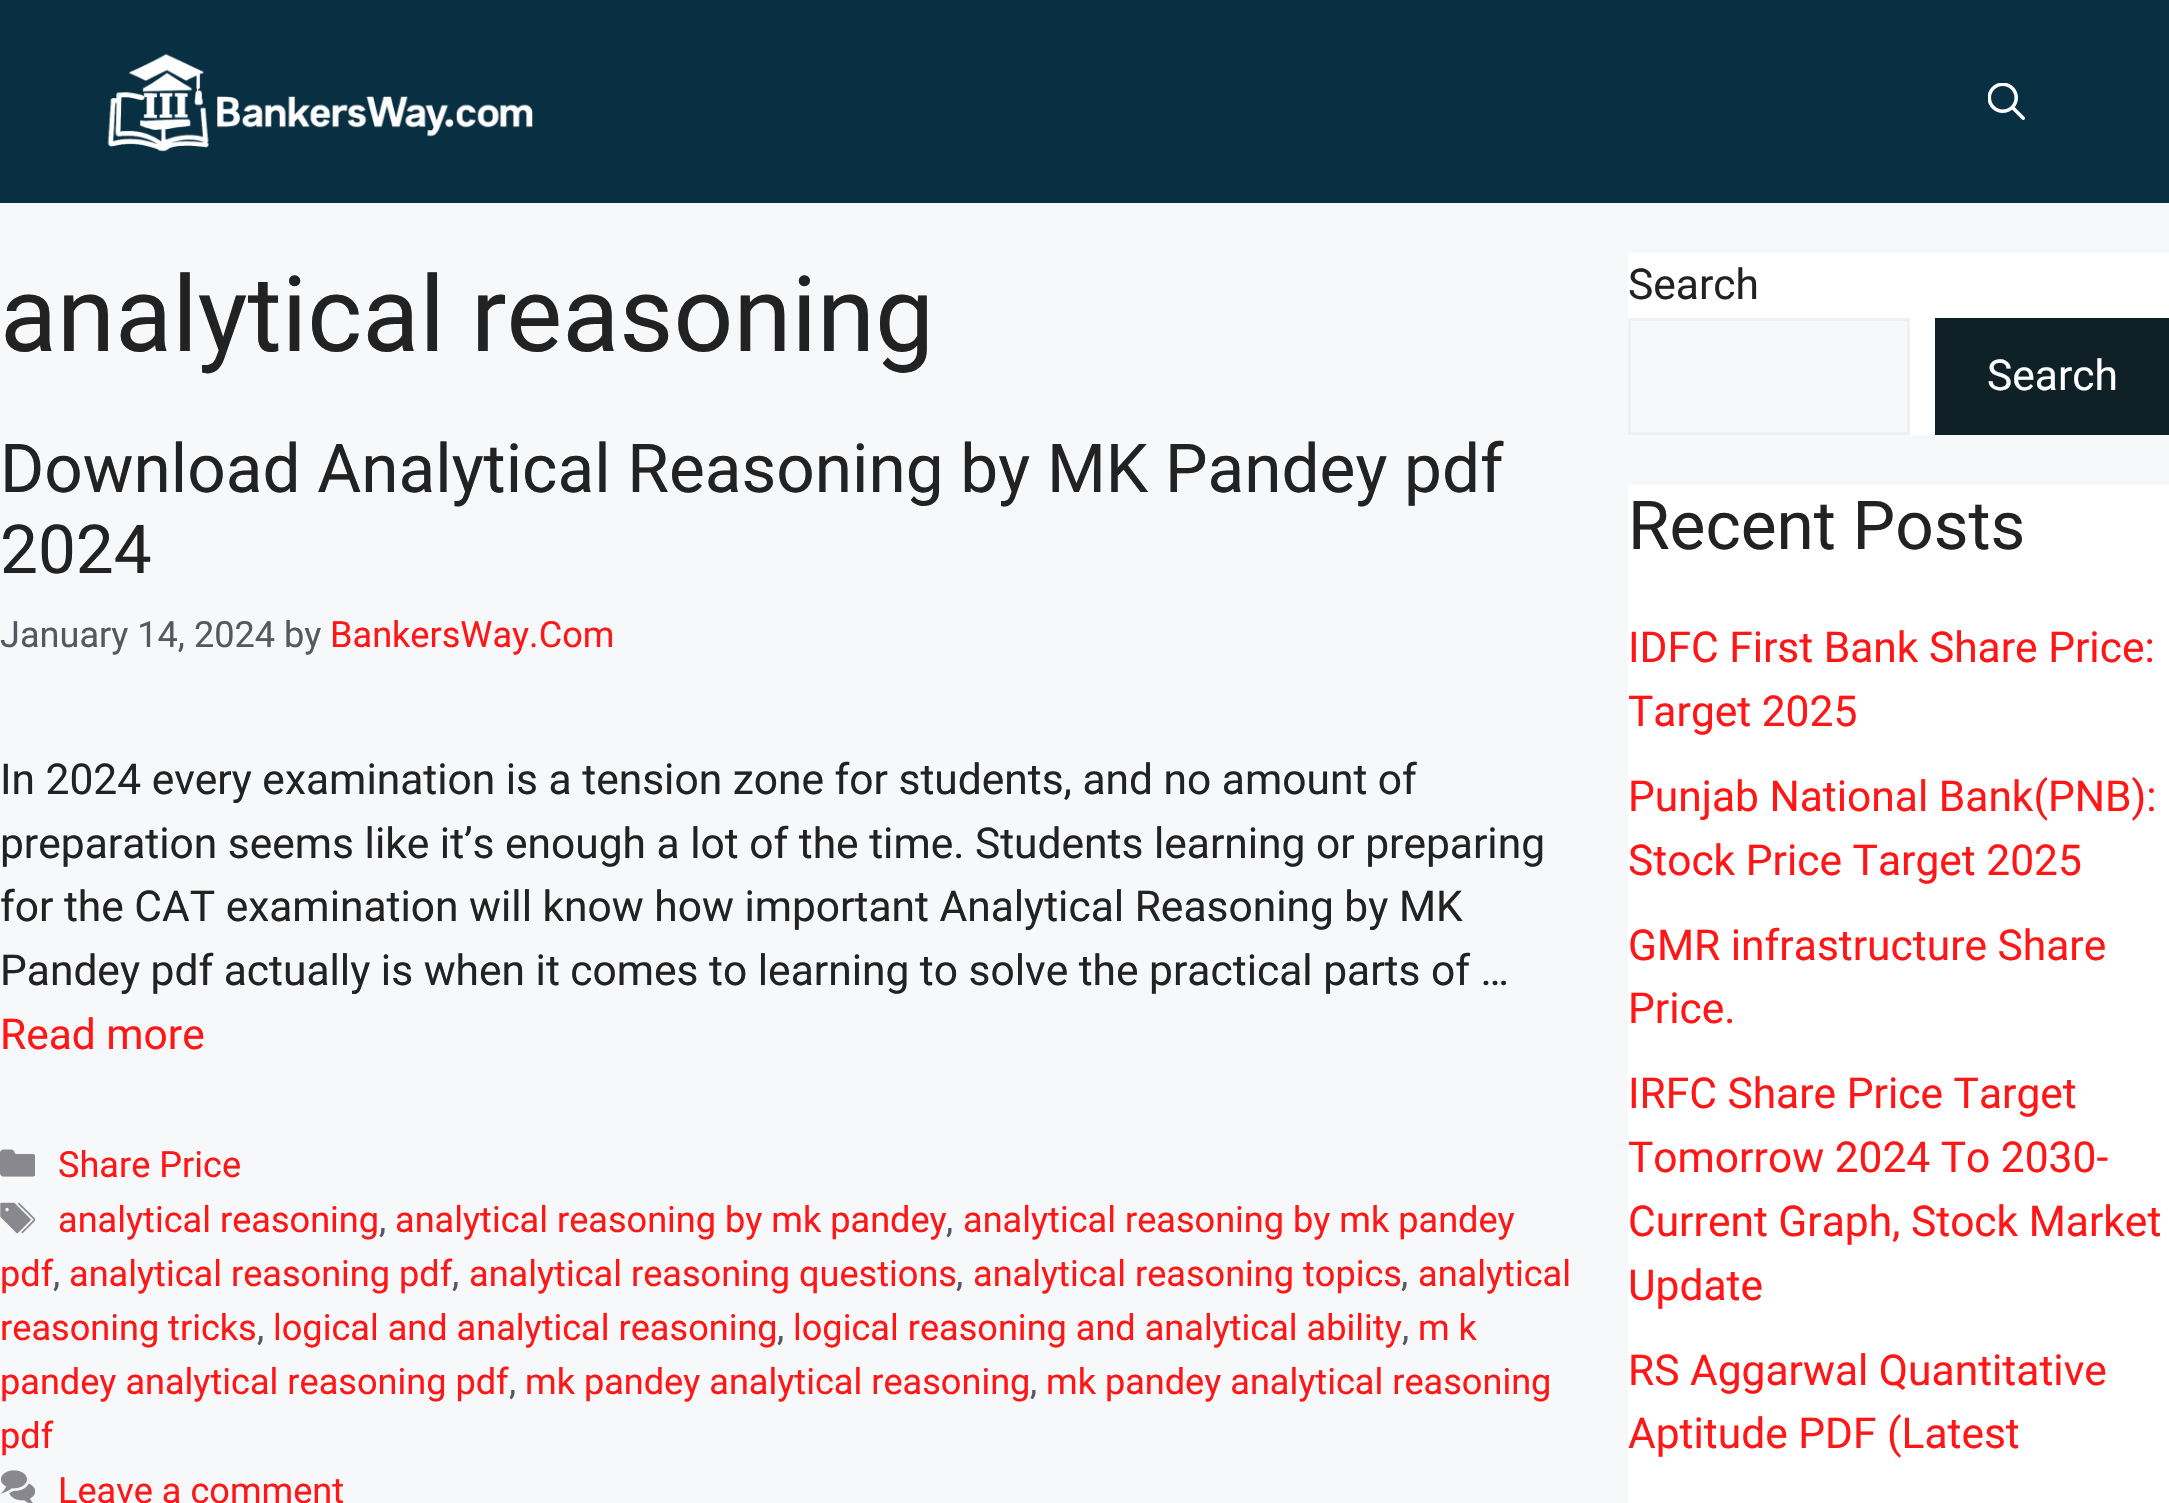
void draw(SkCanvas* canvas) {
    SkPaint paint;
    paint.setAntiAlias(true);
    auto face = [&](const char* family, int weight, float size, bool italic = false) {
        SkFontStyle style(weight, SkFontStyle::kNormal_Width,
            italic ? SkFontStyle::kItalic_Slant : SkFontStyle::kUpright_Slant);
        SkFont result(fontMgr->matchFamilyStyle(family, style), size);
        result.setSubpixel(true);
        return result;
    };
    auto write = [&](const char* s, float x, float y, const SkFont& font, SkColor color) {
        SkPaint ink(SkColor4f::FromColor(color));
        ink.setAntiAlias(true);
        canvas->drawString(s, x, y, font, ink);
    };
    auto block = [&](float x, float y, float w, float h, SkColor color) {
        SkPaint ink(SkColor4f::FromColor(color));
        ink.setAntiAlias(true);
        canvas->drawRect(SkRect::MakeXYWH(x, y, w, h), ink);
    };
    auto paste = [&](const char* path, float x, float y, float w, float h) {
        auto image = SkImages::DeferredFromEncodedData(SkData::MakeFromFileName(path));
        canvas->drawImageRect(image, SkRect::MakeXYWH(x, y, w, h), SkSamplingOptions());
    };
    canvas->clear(SkColorSetRGB(247, 248, 249));
    block(0, 0, 2169, 203, SkColorSetRGB(9, 48, 66));
    paste("pic1.png", 107, 53, 426, 99);
    paste("pic2.png", 1988, 83, 37, 37);
    auto kFont1 = face("Roboto", 400, 105);
    write("analytical reasoning", 0, 351, kFont1, SkColorSetRGB(34, 34, 34));
    auto kFont2 = face("Roboto", 400, 67.5f);
    write("Download Analytical Reasoning by MK Pandey pdf", 0, 492, kFont2, SkColorSetRGB(34, 34, 34));
    write("2024", 0, 573, kFont2, SkColorSetRGB(34, 34, 34));
    auto kFont3 = face("Roboto", 400, 36.1f);
    write("January 14, 2024 by", 0, 647, kFont3, SkColorSetRGB(87, 87, 96));
    write("BankersWay.Com", 330, 647, kFont3, SkColorSetRGB(255, 23, 23));
    auto kFont4 = face("Roboto", 400, 42.5f);
    write("In 2024 every examination is a tension zone for students, and no amount of", 0, 794, kFont4, SkColorSetRGB(34, 34, 34));
    write("preparation seems like it’s enough a lot of the time. Students learning or preparing", 0, 858, kFont4, SkColorSetRGB(34, 34, 34));
    write("for the CAT examination will know how important Analytical Reasoning by MK", 0, 921, kFont4, SkColorSetRGB(34, 34, 34));
    write("Pandey pdf actually is when it comes to learning to solve the practical parts of …", 0, 985, kFont4, SkColorSetRGB(34, 34, 34));
    write("Read more", 0, 1049, kFont4, SkColorSetRGB(255, 23, 23));
    paste("pic3.png", 0, 1149, 35, 28);
    write("Share Price", 58, 1177, kFont3, SkColorSetRGB(255, 23, 23));
    paste("pic4.png", 0, 1202, 35, 32);
    write("analytical reasoning", 58, 1232, kFont3, SkColorSetRGB(255, 23, 23));
    write(",", 379, 1232, kFont3, SkColorSetRGB(87, 87, 96));
    write("analytical reasoning by mk pandey", 395, 1232, kFont3, SkColorSetRGB(255, 23, 23));
    write(",", 946, 1232, kFont3, SkColorSetRGB(87, 87, 96));
    write("analytical reasoning by mk pandey", 963, 1232, kFont3, SkColorSetRGB(255, 23, 23));
    write("pdf", 0, 1286, kFont3, SkColorSetRGB(255, 23, 23));
    write(",", 53, 1286, kFont3, SkColorSetRGB(87, 87, 96));
    write("analytical reasoning pdf", 69, 1286, kFont3, SkColorSetRGB(255, 23, 23));
    write(",", 452, 1286, kFont3, SkColorSetRGB(87, 87, 96));
    write("analytical reasoning questions", 469, 1286, kFont3, SkColorSetRGB(255, 23, 23));
    write(",", 956, 1286, kFont3, SkColorSetRGB(87, 87, 96));
    write("analytical reasoning topics", 973, 1286, kFont3, SkColorSetRGB(255, 23, 23));
    write(",", 1401, 1286, kFont3, SkColorSetRGB(87, 87, 96));
    write("analytical", 1418, 1286, kFont3, SkColorSetRGB(255, 23, 23));
    write("reasoning tricks", 0, 1340, kFont3, SkColorSetRGB(255, 23, 23));
    write("logical and analytical reasoning", 273, 1340, kFont3, SkColorSetRGB(255, 23, 23));
    write("logical reasoning and analytical ability", 793, 1340, kFont3, SkColorSetRGB(255, 23, 23));
    write("m k", 1418, 1340, kFont3, SkColorSetRGB(255, 23, 23));
    write(",", 257, 1340, kFont3, SkColorSetRGB(87, 87, 96));
    write(",", 777, 1340, kFont3, SkColorSetRGB(87, 87, 96));
    write(",", 1402, 1340, kFont3, SkColorSetRGB(87, 87, 96));
    write("pandey analytical reasoning pdf", 0, 1394, kFont3, SkColorSetRGB(255, 23, 23));
    write(",", 509, 1394, kFont3, SkColorSetRGB(87, 87, 96));
    write("mk pandey analytical reasoning", 525, 1394, kFont3, SkColorSetRGB(255, 23, 23));
    write(",", 1030, 1394, kFont3, SkColorSetRGB(87, 87, 96));
    write("mk pandey analytical reasoning", 1046, 1394, kFont3, SkColorSetRGB(255, 23, 23));
    write("pdf", 0, 1448, kFont3, SkColorSetRGB(255, 23, 23));
    paste("pic5.png", 0, 1470, 35, 33);
    write("Leave a comment", 58, 1503, kFont3, SkColorSetRGB(255, 23, 23));
    block(1628, 253, 541, 182, SK_ColorWHITE);
    write("Search", 1628, 299, kFont4, SkColorSetRGB(34, 34, 34));
    paint.setColor(SkColorSetRGB(247, 248, 249));
    canvas->drawRect(SkRect::MakeXYWH(1629.5f, 319.5f, 279, 114), paint);
    paint.setStyle(SkPaint::kStroke_Style);
    paint.setStrokeWidth(3);
    paint.setColor(SkColorSetRGB(240, 240, 240));
    canvas->drawRect(SkRect::MakeXYWH(1629.5f, 319.5f, 279, 114), paint);
    block(1935, 318, 234, 117, SkColorSetRGB(15, 32, 39));
    write("Search", 1987, 390, kFont4, SK_ColorWHITE);
    block(1628, 485, 541, 1018, SK_ColorWHITE);
    write("Recent Posts", 1628, 549, kFont2, SkColorSetRGB(34, 34, 34));
    write("IDFC First Bank Share Price:", 1628, 662, kFont4, SkColorSetRGB(255, 23, 23));
    write("Target 2025", 1628, 726, kFont4, SkColorSetRGB(255, 23, 23));
    write("Punjab National Bank(PNB):", 1628, 811, kFont4, SkColorSetRGB(255, 23, 23));
    write("Stock Price Target 2025", 1628, 875, kFont4, SkColorSetRGB(255, 23, 23));
    write("GMR infrastructure Share", 1628, 960, kFont4, SkColorSetRGB(255, 23, 23));
    write("Price.", 1628, 1023, kFont4, SkColorSetRGB(255, 23, 23));
    write("IRFC Share Price Target", 1628, 1108, kFont4, SkColorSetRGB(255, 23, 23));
    write("Tomorrow 2024 To 2030-", 1628, 1172, kFont4, SkColorSetRGB(255, 23, 23));
    write("Current Graph, Stock Market", 1628, 1236, kFont4, SkColorSetRGB(255, 23, 23));
    write("Update", 1628, 1300, kFont4, SkColorSetRGB(255, 23, 23));
    write("RS Aggarwal Quantitative", 1628, 1385, kFont4, SkColorSetRGB(255, 23, 23));
    write("Aptitude PDF (Latest", 1628, 1448, kFont4, SkColorSetRGB(255, 23, 23));
}
